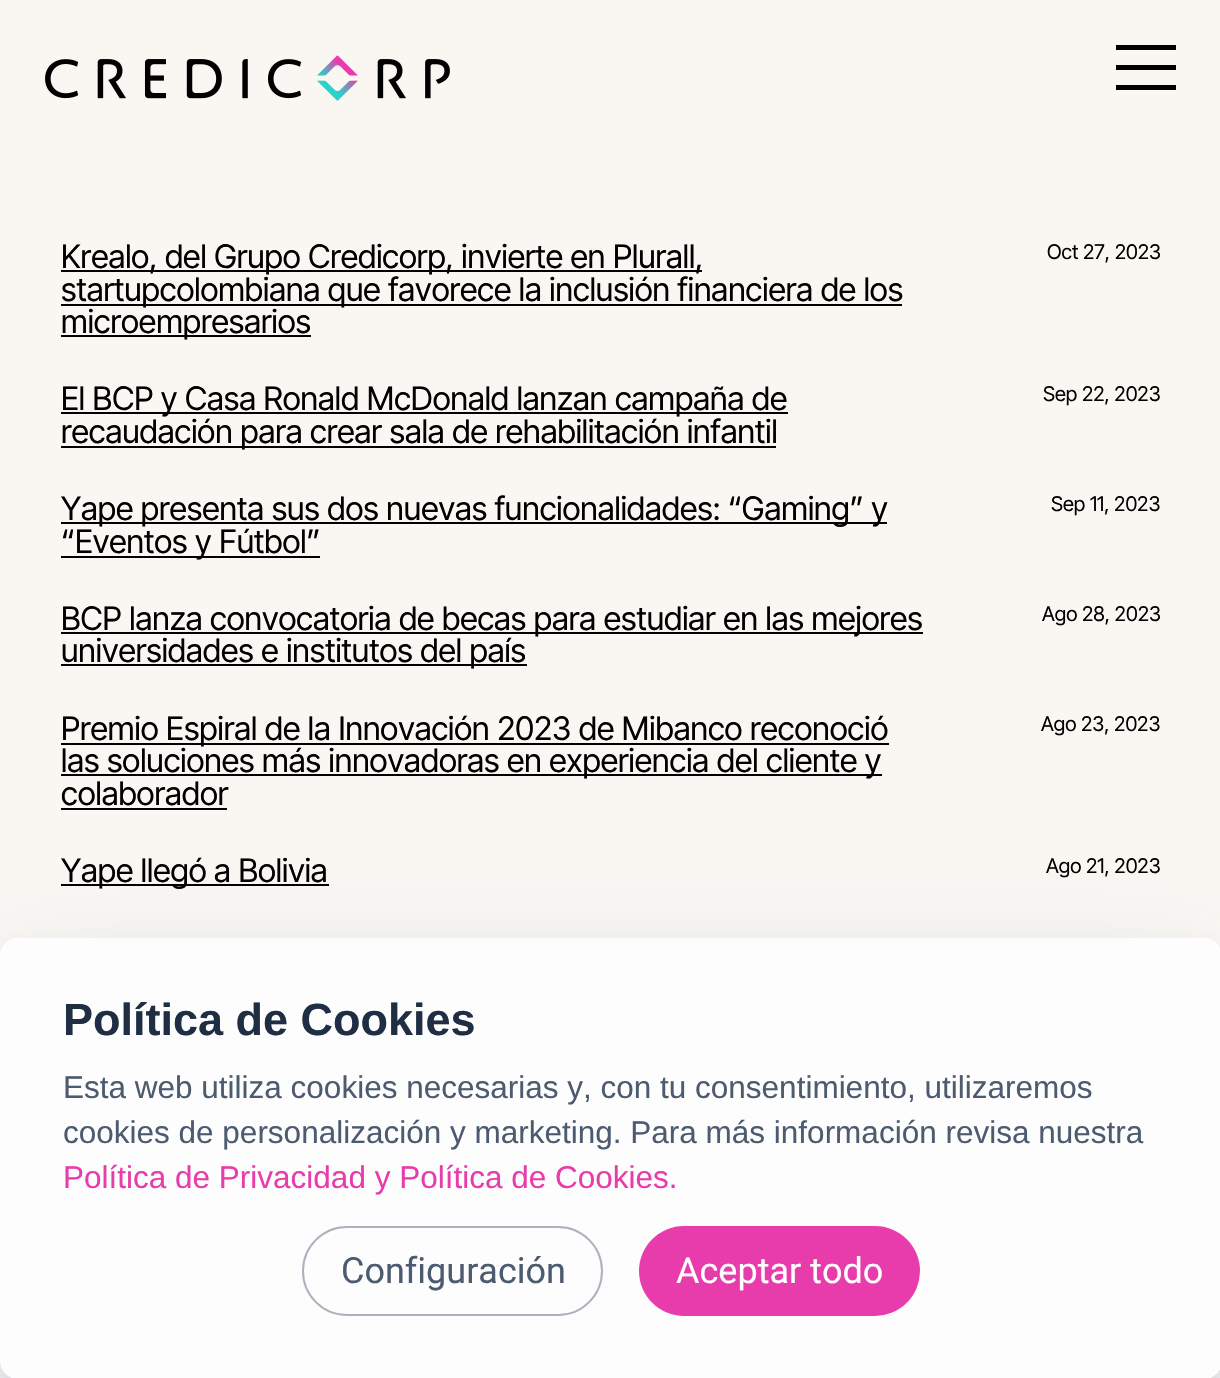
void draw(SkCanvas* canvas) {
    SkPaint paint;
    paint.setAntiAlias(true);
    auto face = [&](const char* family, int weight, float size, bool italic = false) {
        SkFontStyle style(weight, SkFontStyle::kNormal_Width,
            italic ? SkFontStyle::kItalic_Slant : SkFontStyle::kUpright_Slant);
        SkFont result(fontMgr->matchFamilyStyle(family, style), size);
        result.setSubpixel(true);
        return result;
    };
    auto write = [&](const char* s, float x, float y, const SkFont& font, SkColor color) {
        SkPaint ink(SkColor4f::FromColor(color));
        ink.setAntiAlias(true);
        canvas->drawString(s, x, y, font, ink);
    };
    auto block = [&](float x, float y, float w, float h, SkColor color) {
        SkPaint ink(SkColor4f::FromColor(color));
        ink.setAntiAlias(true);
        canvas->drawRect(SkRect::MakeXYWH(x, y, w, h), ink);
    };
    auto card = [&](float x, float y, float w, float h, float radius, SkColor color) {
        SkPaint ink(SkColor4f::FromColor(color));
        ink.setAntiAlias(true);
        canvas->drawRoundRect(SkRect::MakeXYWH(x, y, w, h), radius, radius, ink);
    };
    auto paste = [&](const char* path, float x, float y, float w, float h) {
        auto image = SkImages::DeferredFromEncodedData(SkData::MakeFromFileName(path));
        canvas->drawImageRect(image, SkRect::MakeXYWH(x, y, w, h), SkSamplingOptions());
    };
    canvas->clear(SkColorSetRGB(250, 247, 243));
    paste("pic1.png", 45, 55, 405, 46);
    block(1116, 45, 60, 5, SK_ColorBLACK);
    block(1116, 65, 60, 5, SK_ColorBLACK);
    block(1116, 85, 60, 5, SK_ColorBLACK);
    block(61, 270, 641, 2, SK_ColorBLACK);
    auto kFont1 = face("Inter Tight", 400, 32.4f);
    write("Krealo, del Grupo Credicorp, invierte en Plurall,", 61, 268, kFont1, SK_ColorBLACK);
    block(61, 304, 841, 2, SK_ColorBLACK);
    write("startupcolombiana que favorece la inclusión financiera de los", 61, 301, kFont1, SK_ColorBLACK);
    block(61, 335, 250, 2, SK_ColorBLACK);
    write("microempresarios", 61, 333, kFont1, SK_ColorBLACK);
    auto kFont2 = face("Inter Tight", 400, 20.25f);
    write("Oct 27, 2023", 1047, 259, kFont2, SK_ColorBLACK);
    block(61, 412, 727, 2, SK_ColorBLACK);
    write("El BCP y Casa Ronald McDonald lanzan campaña de", 61, 410, kFont1, SK_ColorBLACK);
    block(61, 446, 715, 2, SK_ColorBLACK);
    write("recaudación para crear sala de rehabilitación infantil", 61, 443, kFont1, SK_ColorBLACK);
    write("Sep 22, 2023", 1043, 401, kFont2, SK_ColorBLACK);
    block(61, 522, 826, 2, SK_ColorBLACK);
    write("Yape presenta sus dos nuevas funcionalidades: “Gaming” y", 61, 520, kFont1, SK_ColorBLACK);
    block(61, 556, 259, 2, SK_ColorBLACK);
    write("“Eventos y Fútbol”", 61, 553, kFont1, SK_ColorBLACK);
    write("Sep 11, 2023", 1051, 511, kFont2, SK_ColorBLACK);
    block(61, 632, 862, 2, SK_ColorBLACK);
    write("BCP lanza convocatoria de becas para estudiar en las mejores", 61, 630, kFont1, SK_ColorBLACK);
    block(61, 664, 466, 2, SK_ColorBLACK);
    write("universidades e institutos del país", 61, 662, kFont1, SK_ColorBLACK);
    write("Ago 28, 2023", 1042, 621, kFont2, SK_ColorBLACK);
    block(61, 743, 828, 2, SK_ColorBLACK);
    write("Premio Espiral de la Innovación 2023 de Mibanco reconoció", 61, 740, kFont1, SK_ColorBLACK);
    block(61, 774, 821, 2, SK_ColorBLACK);
    write("las soluciones más innovadoras en experiencia del cliente y", 61, 772, kFont1, SK_ColorBLACK);
    write("colaborador", 61, 805, kFont1, SK_ColorBLACK);
    block(61, 808, 166, 2, SK_ColorBLACK);
    write("Ago 23, 2023", 1041, 731, kFont2, SK_ColorBLACK);
    block(61, 884, 268, 2, SK_ColorBLACK);
    write("Yape llegó a Bolivia", 61, 882, kFont1, SK_ColorBLACK);
    write("Ago 21, 2023", 1046, 873, kFont2, SK_ColorBLACK);
    paint.setColor(SkColorSetARGB(51, 82, 112, 148));
    paint.setMaskFilter(SkMaskFilter::MakeBlur(kNormal_SkBlurStyle, 17));
    canvas->drawRoundRect(SkRect::MakeXYWH(0, 963, 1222, 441), 18, 18, paint);
    paint.setMaskFilter(nullptr);
    paint.setColor(SkColorSetARGB(31, 82, 112, 148));
    paint.setMaskFilter(SkMaskFilter::MakeBlur(kNormal_SkBlurStyle, 52));
    canvas->drawRoundRect(SkRect::MakeXYWH(0, 959, 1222, 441), 18, 18, paint);
    paint.setMaskFilter(nullptr);
    card(0, 938, 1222, 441, 18, SkColorSetRGB(253, 253, 253));
    auto kFont3 = face("Liberation Sans", 700, 45);
    write("Política de Cookies", 63, 1035, kFont3, SkColorSetRGB(32, 46, 68));
    auto kFont4 = face("Liberation Sans", 400, 31.5f);
    write("Esta web utiliza cookies necesarias y, con tu consentimiento, utilizaremos", 63, 1098, kFont4, SkColorSetRGB(77, 91, 112));
    write("cookies de personalización y marketing. Para más información revisa nuestra", 63, 1143, kFont4, SkColorSetRGB(77, 91, 112));
    write("Política de Privacidad y Política de Cookies.", 63, 1188, kFont4, SkColorSetRGB(233, 60, 172));
    paint.setStyle(SkPaint::kStroke_Style);
    paint.setStrokeWidth(2);
    paint.setColor(SkColorSetRGB(172, 178, 189));
    canvas->drawRoundRect(SkRect::MakeXYWH(303, 1227, 299, 88), 44, 44, paint);
    auto kFont5 = face("Roboto", 400, 36);
    write("Configuración", 341, 1283, kFont5, SkColorSetRGB(77, 91, 112));
    card(639, 1226, 281, 90, 45, SkColorSetRGB(233, 60, 172));
    write("Aceptar todo", 676, 1283, kFont5, SK_ColorWHITE);
}
